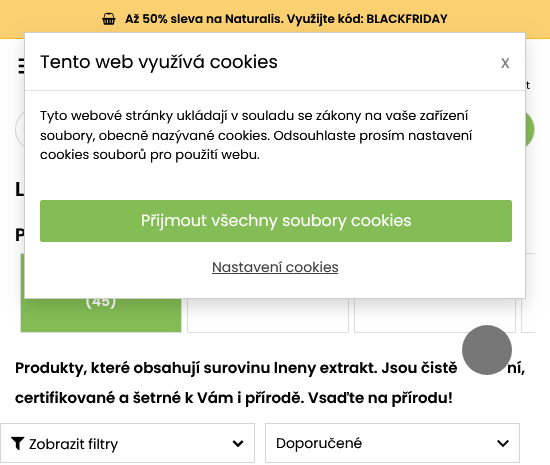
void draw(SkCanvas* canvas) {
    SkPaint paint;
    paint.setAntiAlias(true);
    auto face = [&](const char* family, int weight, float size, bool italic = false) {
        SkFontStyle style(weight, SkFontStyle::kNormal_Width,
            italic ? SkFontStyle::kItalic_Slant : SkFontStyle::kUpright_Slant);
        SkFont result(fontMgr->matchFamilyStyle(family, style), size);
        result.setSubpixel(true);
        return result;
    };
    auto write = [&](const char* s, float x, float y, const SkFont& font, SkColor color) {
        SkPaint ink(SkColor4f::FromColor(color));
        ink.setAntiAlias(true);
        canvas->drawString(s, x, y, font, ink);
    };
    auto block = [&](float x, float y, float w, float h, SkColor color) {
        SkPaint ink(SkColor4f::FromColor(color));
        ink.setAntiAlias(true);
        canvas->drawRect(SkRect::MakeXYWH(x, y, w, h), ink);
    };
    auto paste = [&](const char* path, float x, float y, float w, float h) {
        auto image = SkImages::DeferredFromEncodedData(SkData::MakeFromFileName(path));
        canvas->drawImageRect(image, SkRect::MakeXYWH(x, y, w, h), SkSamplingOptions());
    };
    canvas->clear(SK_ColorWHITE);
    block(0, 0, 550, 38, SkColorSetRGB(250, 208, 113));
    block(0, 38, 550, 1, SkColorSetRGB(255, 188, 30));
    paste("pic1.png", 102, 12, 14, 13);
    auto kFont1 = face("Poppins", 600, 12);
    write("Až 50% sleva na Naturalis. Využijte kód: BLACKFRIDAY", 125, 23, kFont1, SK_ColorBLACK);
    paste("pic2.png", 18, 58, 6, 16);
    auto kFont2 = face("Poppins", 400, 11);
    write("t", 526, 89, kFont2, SK_ColorBLACK);
    paint.setStyle(SkPaint::kStroke_Style);
    paint.setStrokeWidth(1);
    paint.setColor(SkColorSetRGB(214, 212, 212));
    canvas->drawPath(SkPathBuilder().moveTo(37.5f, 107.5f).lineTo(454.5f, 107.5f).lineTo(454.5f, 151.5f).lineTo(37.5f, 151.5f).cubicTo(25.5f, 151.5f, 15.5f, 141.5f, 15.5f, 129.5f).cubicTo(15.5f, 117.5f, 25.5f, 107.5f, 37.5f, 107.5f).close().detach(), paint);
    paint.setStyle(SkPaint::kFill_Style);
    paint.setColor(SkColorSetRGB(132, 189, 85));
    canvas->drawPath(SkPathBuilder().moveTo(455.5f, 107.5f).lineTo(512.5f, 107.5f).cubicTo(524.5f, 107.5f, 534.5f, 117.5f, 534.5f, 129.5f).cubicTo(534.5f, 141.5f, 524.5f, 151.5f, 512.5f, 151.5f).lineTo(455.5f, 151.5f).close().detach(), paint);
    paint.setStyle(SkPaint::kStroke_Style);
    paint.setColor(SkColorSetRGB(214, 212, 212));
    canvas->drawPath(SkPathBuilder().moveTo(455.5f, 107.5f).lineTo(512.5f, 107.5f).cubicTo(524.5f, 107.5f, 534.5f, 117.5f, 534.5f, 129.5f).cubicTo(534.5f, 141.5f, 524.5f, 151.5f, 512.5f, 151.5f).lineTo(455.5f, 151.5f).close().detach(), paint);
    auto kFont3 = face("Poppins", 600, 20);
    write("L", 15, 196, kFont3, SK_ColorBLACK);
    auto kFont4 = face("Poppins", 600, 18);
    write("P", 15, 241, kFont4, SK_ColorBLACK);
    paint.setStyle(SkPaint::kFill_Style);
    paint.setColor(SkColorSetRGB(132, 189, 85));
    canvas->drawRect(SkRect::MakeXYWH(20.5f, 253.5f, 161, 79), paint);
    paint.setStyle(SkPaint::kStroke_Style);
    paint.setColor(SkColorSetRGB(221, 221, 221));
    canvas->drawRect(SkRect::MakeXYWH(20.5f, 253.5f, 161, 79), paint);
    auto kFont5 = face("Poppins", 600, 14);
    write("(45)", 85, 306, kFont5, SK_ColorWHITE);
    canvas->drawRect(SkRect::MakeXYWH(187.5f, 253.5f, 161, 79), paint);
    canvas->drawRect(SkRect::MakeXYWH(354.5f, 253.5f, 161, 79), paint);
    canvas->save();
    canvas->clipRect(SkRect::MakeXYWH(15, 253, 520, 80));
    canvas->drawRect(SkRect::MakeXYWH(521.5f, 253.5f, 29, 79), paint);
    canvas->restore();
    auto kFont6 = face("Poppins", 600, 15);
    write("Produkty, které obsahují surovinu lneny extrakt. Jsou čistě", 15, 373, kFont6, SK_ColorBLACK);
    write("ní,", 507, 373, kFont6, SK_ColorBLACK);
    write("certifikované a šetrné k Vám i přírodě. Vsaďte na přírodu!", 15, 403, kFont6, SK_ColorBLACK);
    paint.setColor(SkColorSetRGB(214, 212, 212));
    canvas->drawRect(SkRect::MakeXYWH(0.5f, 423.5f, 254, 39), paint);
    paste("pic3.png", 11, 436, 14, 15);
    auto kFont7 = face("Poppins", 400, 14);
    write("Zobrazit filtry", 29, 449, kFont7, SK_ColorBLACK);
    paste("pic4.png", 232, 440, 12, 8);
    canvas->drawRect(SkRect::MakeXYWH(265.5f, 423.5f, 254, 39), paint);
    write("Doporučené", 276, 448, kFont7, SK_ColorBLACK);
    paste("pic5.png", 497, 439, 12, 9);
    paint.setStyle(SkPaint::kFill_Style);
    paint.setColor(SkColorSetARGB(38, 0, 0, 0));
    paint.setMaskFilter(SkMaskFilter::MakeBlur(kNormal_SkBlurStyle, 8));
    canvas->drawRect(SkRect::MakeXYWH(24, 40, 502, 267), paint);
    paint.setMaskFilter(nullptr);
    paint.setColor(SK_ColorWHITE);
    canvas->drawRect(SkRect::MakeXYWH(24.5f, 32.5f, 501, 266), paint);
    paint.setStyle(SkPaint::kStroke_Style);
    paint.setColor(SkColorSetRGB(204, 204, 204));
    canvas->drawRect(SkRect::MakeXYWH(24.5f, 32.5f, 501, 266), paint);
    block(25, 90, 500, 1, SkColorSetRGB(222, 226, 230));
    auto kFont8 = face("Poppins", 400, 18);
    write("Tento web využívá cookies", 40, 68, kFont8, SK_ColorBLACK);
    write("x", 501, 68, kFont8, SkColorSetRGB(122, 122, 122));
    auto kFont9 = face("Poppins", 400, 13);
    write("Tyto webové stránky ukládají v souladu se zákony na vaše zařízení", 40, 120, kFont9, SK_ColorBLACK);
    write("soubory, obecně nazývané cookies. Odsouhlaste prosím nastavení", 40, 140, kFont9, SK_ColorBLACK);
    write("cookies souborů pro použití webu.", 40, 159, kFont9, SK_ColorBLACK);
    paint.setStyle(SkPaint::kFill_Style);
    paint.setColor(SkColorSetRGB(132, 189, 85));
    canvas->drawRoundRect(SkRect::MakeXYWH(40.5f, 200.5f, 471, 41), 1.5f, 1.5f, paint);
    paint.setStyle(SkPaint::kStroke_Style);
    canvas->drawRoundRect(SkRect::MakeXYWH(40.5f, 200.5f, 471, 41), 1.5f, 1.5f, paint);
    auto kFont10 = face("Poppins", 400, 16);
    write("Přijmout všechny soubory cookies", 141, 226, kFont10, SK_ColorWHITE);
    write("Nastavení cookies", 212, 272, kFont7, SkColorSetRGB(64, 64, 64));
    block(212, 273, 126, 1, SkColorSetRGB(64, 64, 64));
    paint.setStyle(SkPaint::kFill_Style);
    paint.setColor(SkColorSetRGB(119, 119, 119));
    canvas->drawCircle(487, 350, 25, paint);
}
